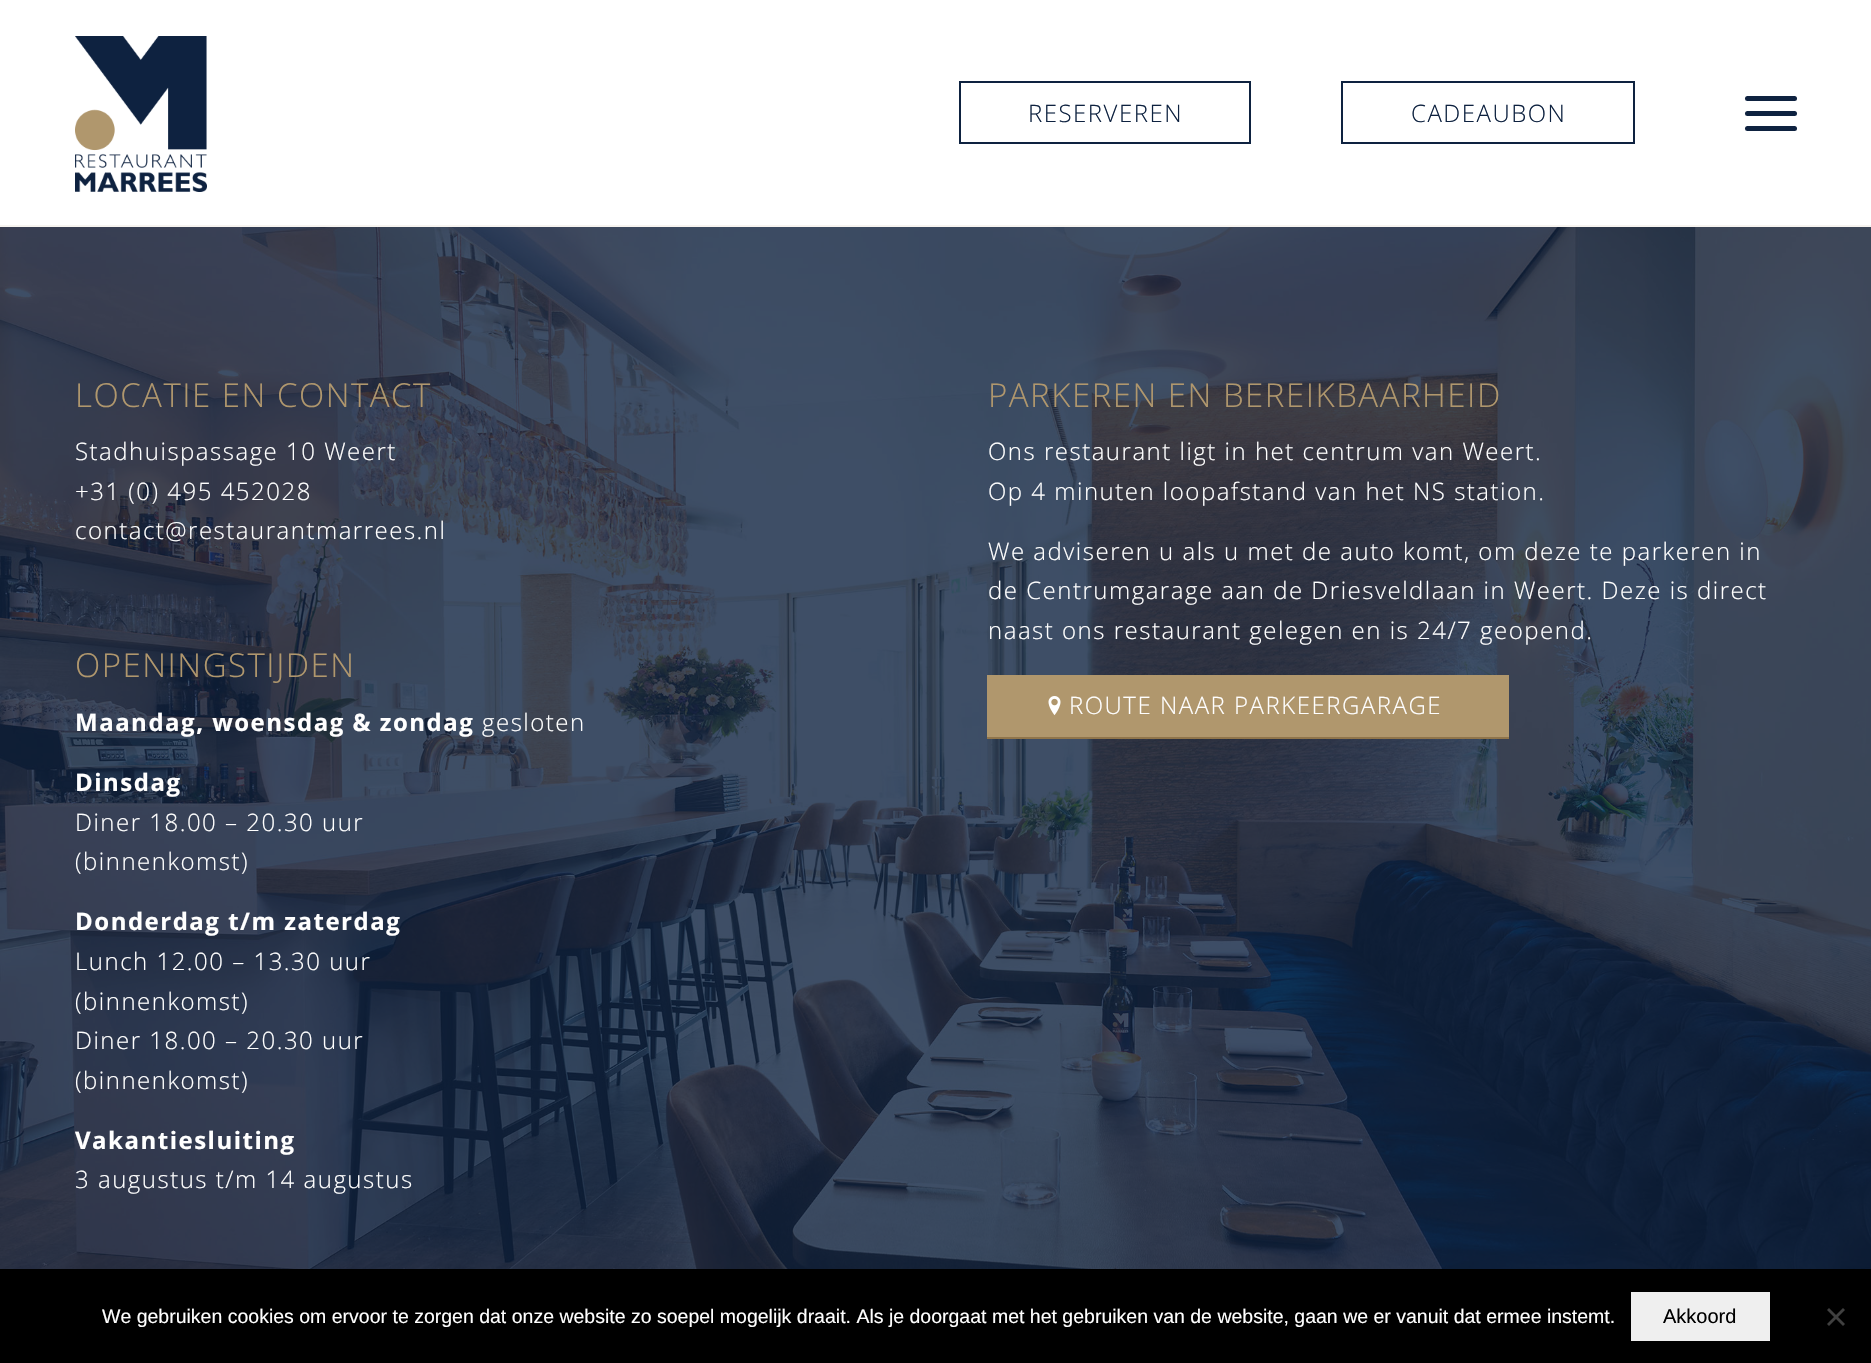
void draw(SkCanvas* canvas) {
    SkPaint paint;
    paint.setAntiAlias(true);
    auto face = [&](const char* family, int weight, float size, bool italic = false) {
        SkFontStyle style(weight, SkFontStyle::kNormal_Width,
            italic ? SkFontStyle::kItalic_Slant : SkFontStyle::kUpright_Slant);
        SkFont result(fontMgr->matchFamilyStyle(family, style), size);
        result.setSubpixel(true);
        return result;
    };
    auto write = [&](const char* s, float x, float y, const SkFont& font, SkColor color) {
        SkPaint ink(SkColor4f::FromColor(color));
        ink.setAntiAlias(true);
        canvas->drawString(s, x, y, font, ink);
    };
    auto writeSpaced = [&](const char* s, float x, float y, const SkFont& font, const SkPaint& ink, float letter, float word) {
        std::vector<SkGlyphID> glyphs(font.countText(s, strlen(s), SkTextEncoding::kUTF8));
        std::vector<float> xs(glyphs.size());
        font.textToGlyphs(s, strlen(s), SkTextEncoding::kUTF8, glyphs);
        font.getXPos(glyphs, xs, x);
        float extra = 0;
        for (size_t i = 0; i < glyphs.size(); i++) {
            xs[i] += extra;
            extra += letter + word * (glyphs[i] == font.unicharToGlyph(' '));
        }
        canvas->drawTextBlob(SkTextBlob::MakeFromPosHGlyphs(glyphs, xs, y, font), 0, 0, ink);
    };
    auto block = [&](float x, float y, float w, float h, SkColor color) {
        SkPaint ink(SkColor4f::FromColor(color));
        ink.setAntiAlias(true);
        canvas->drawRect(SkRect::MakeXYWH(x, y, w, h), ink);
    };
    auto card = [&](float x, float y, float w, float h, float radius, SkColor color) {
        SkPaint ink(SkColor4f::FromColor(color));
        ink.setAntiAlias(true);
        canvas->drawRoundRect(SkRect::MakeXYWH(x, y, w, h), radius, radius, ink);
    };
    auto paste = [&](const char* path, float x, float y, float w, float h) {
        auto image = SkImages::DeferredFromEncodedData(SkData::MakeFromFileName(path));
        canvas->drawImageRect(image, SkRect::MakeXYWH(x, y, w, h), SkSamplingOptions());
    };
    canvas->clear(SK_ColorWHITE);
    block(0, 225, 1871, 2, SkColorSetRGB(247, 244, 240));
    paste("pic1.png", 75, 36, 132, 156);
    paint.setStyle(SkPaint::kStroke_Style);
    paint.setStrokeWidth(2);
    paint.setColor(SkColorSetRGB(14, 34, 64));
    canvas->drawRect(SkRect::MakeXYWH(960, 82, 290, 61), paint);
    auto kFont1 = face("Open Sans", 300, 24);
    paint.setStyle(SkPaint::kFill_Style);
    writeSpaced("RESERVEREN", 1028, 122, kFont1, paint, 1.5f, 0);
    paint.setStyle(SkPaint::kStroke_Style);
    canvas->drawRect(SkRect::MakeXYWH(1342, 82, 292, 61), paint);
    paint.setStyle(SkPaint::kFill_Style);
    writeSpaced("CADEAUBON", 1411, 122, kFont1, paint, 1.5f, 0);
    card(1745, 111, 52, 5, 2.5f, SkColorSetRGB(14, 34, 64));
    card(1745, 96, 52, 5, 2.5f, SkColorSetRGB(14, 34, 64));
    card(1745, 126, 52, 5, 2.5f, SkColorSetRGB(14, 34, 64));
    paste("pic2.png", 0, 227, 1871, 1042);
    auto kFont2 = face("Open Sans", 300, 33);
    paint.setColor(SkColorSetRGB(176, 151, 109));
    writeSpaced("LOCATIE EN CONTACT", 75, 407, kFont2, paint, 1.5f, 0);
    paint.setColor(SK_ColorWHITE);
    writeSpaced("Stadhuispassage 10 Weert", 75, 460, kFont1, paint, 1.5f, 0);
    writeSpaced("+31 (0) 495 452028", 75, 500, kFont1, paint, 1.5f, 0);
    writeSpaced("contact@restaurantmarrees.nl", 75, 539, kFont1, paint, 1.5f, 0);
    paint.setColor(SkColorSetRGB(176, 151, 109));
    writeSpaced("OPENINGSTIJDEN", 75, 677, kFont2, paint, 1.5f, 0);
    auto kFont3 = face("Open Sans", 700, 24);
    paint.setColor(SK_ColorWHITE);
    writeSpaced("Maandag, woensdag & zondag", 75, 731, kFont3, paint, 1.5f, 0);
    writeSpaced("gesloten", 482, 731, kFont1, paint, 1.5f, 0);
    writeSpaced("Dinsdag", 75, 791, kFont3, paint, 1.5f, 0);
    writeSpaced("Diner 18.00 – 20.30 uur", 75, 831, kFont1, paint, 1.5f, 0);
    writeSpaced("(binnenkomst)", 75, 870, kFont1, paint, 1.5f, 0);
    writeSpaced("Donderdag t/m zaterdag", 75, 930, kFont3, paint, 1.5f, 0);
    writeSpaced("Lunch 12.00 – 13.30 uur", 75, 970, kFont1, paint, 1.5f, 0);
    writeSpaced("(binnenkomst)", 75, 1010, kFont1, paint, 1.5f, 0);
    writeSpaced("Diner 18.00 – 20.30 uur", 75, 1049, kFont1, paint, 1.5f, 0);
    writeSpaced("(binnenkomst)", 75, 1089, kFont1, paint, 1.5f, 0);
    writeSpaced("Vakantiesluiting", 75, 1149, kFont3, paint, 1.5f, 0);
    writeSpaced("3 augustus t/m 14 augustus", 75, 1188, kFont1, paint, 1.5f, 0);
    paint.setColor(SkColorSetRGB(176, 151, 109));
    writeSpaced("PARKEREN EN BEREIKBAARHEID", 988, 407, kFont2, paint, 1.5f, 0);
    paint.setColor(SK_ColorWHITE);
    writeSpaced("Ons restaurant ligt in het centrum van Weert.", 988, 460, kFont1, paint, 1.5f, 0);
    writeSpaced("Op 4 minuten loopafstand van het NS station.", 988, 500, kFont1, paint, 1.5f, 0);
    writeSpaced("We adviseren u als u met de auto komt, om deze te parkeren in", 988, 560, kFont1, paint, 1.5f, 0);
    writeSpaced("de Centrumgarage aan de Driesveldlaan in Weert. Deze is direct", 988, 599, kFont1, paint, 1.5f, 0);
    writeSpaced("naast ons restaurant gelegen en is 24/7 geopend.", 988, 639, kFont1, paint, 1.5f, 0);
    block(987, 675, 522, 62, SkColorSetRGB(176, 151, 109));
    block(987, 737, 522, 2, SkColorSetRGB(144, 117, 75));
    paste("pic3.png", 1048, 696, 13, 20);
    writeSpaced("ROUTE NAAR PARKEERGARAGE", 1069, 714, kFont1, paint, 1.5f, 0);
    block(0, 1269, 1871, 94, SK_ColorBLACK);
    auto kFont4 = face("Liberation Sans", 400, 19.5f);
    write("We gebruiken cookies om ervoor te zorgen dat onze website zo soepel mogelijk draait. Als je doorgaat met het gebruiken van de website, gaan we er vanuit dat ermee instemt.", 102, 1323, kFont4, SK_ColorWHITE);
    block(1631, 1292, 139, 49, SkColorSetRGB(239, 239, 239));
    auto kFont5 = face("Liberation Sans", 400, 20);
    write("Akkoord", 1663, 1323, kFont5, SK_ColorBLACK);
    paint.setColor(SkColorSetRGB(64, 64, 64));
    canvas->drawPath(SkPathBuilder().moveTo(1843, 1308).lineTo(1845, 1310).lineTo(1829, 1326).lineTo(1827, 1324).close().detach(), paint);
    canvas->drawPath(SkPathBuilder().moveTo(1827, 1310).lineTo(1829, 1308).lineTo(1845, 1324).lineTo(1843, 1326).close().detach(), paint);
}
